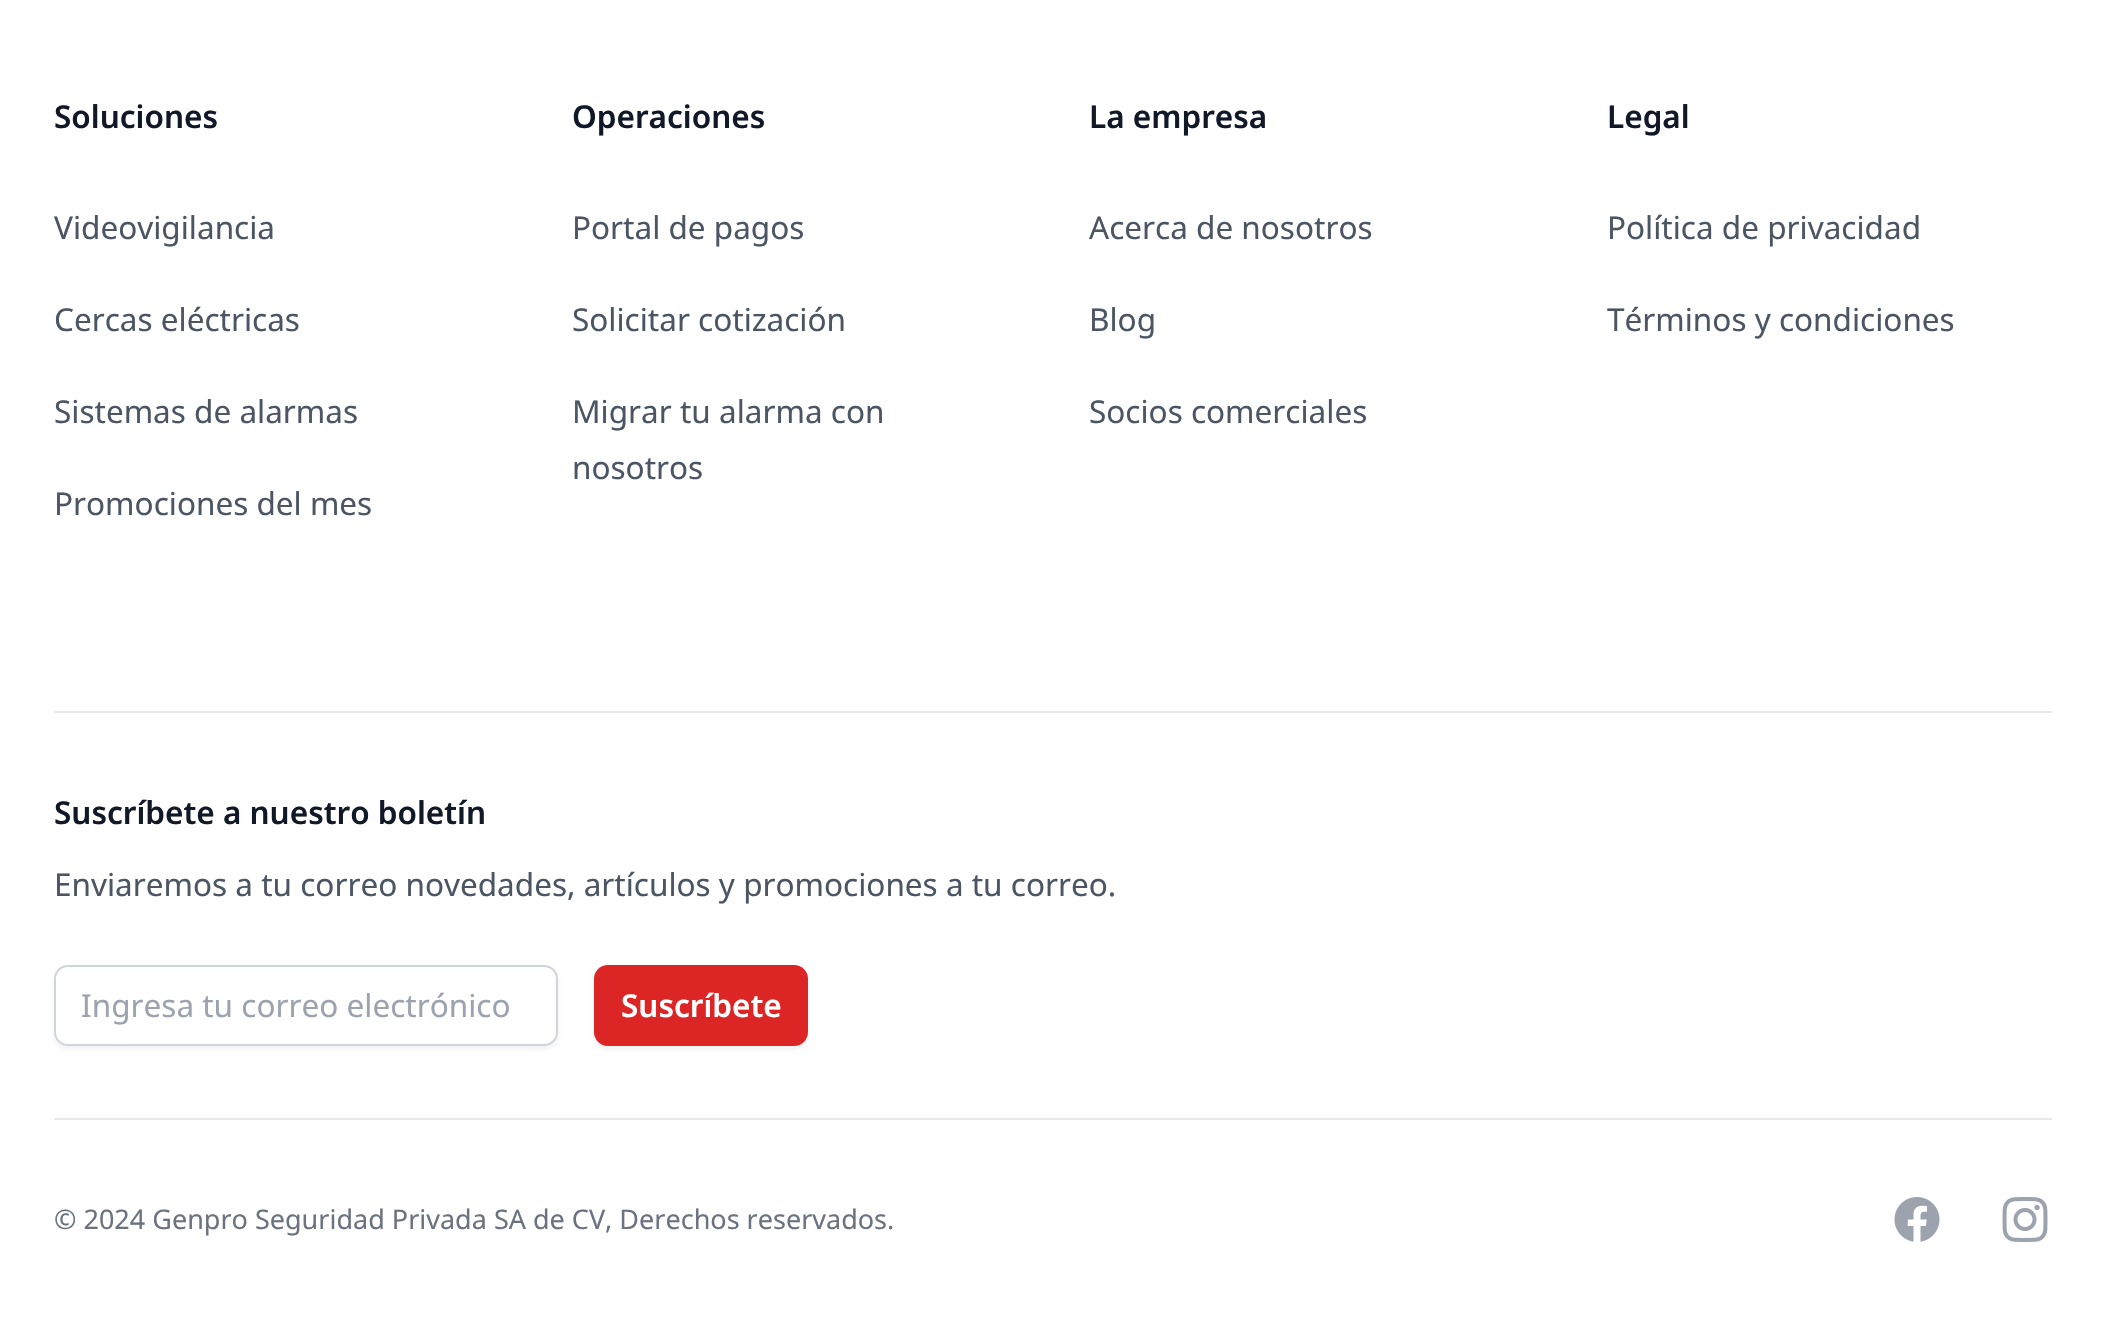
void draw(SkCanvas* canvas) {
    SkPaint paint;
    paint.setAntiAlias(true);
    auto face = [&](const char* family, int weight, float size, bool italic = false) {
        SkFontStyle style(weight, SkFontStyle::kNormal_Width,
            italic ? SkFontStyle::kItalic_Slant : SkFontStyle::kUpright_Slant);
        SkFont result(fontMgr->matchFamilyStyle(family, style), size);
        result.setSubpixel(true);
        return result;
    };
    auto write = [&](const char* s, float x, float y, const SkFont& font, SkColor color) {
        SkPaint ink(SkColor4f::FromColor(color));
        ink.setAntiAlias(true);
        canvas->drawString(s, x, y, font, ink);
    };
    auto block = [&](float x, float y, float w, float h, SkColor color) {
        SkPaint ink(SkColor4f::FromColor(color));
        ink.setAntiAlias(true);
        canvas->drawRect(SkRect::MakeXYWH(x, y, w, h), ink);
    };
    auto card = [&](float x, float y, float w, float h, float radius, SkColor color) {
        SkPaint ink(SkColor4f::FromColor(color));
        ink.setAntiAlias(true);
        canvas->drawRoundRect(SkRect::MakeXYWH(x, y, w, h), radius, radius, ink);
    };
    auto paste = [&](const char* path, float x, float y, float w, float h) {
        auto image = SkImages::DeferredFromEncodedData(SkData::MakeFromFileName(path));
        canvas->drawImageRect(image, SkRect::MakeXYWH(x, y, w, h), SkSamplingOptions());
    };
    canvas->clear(SK_ColorWHITE);
    auto kFont1 = face("Noto Sans", 600, 31.5f);
    write("Soluciones", 54, 128, kFont1, SkColorSetRGB(17, 24, 39));
    auto kFont2 = face("Noto Sans", 400, 31.5f);
    write("Videovigilancia", 54, 239, kFont2, SkColorSetRGB(75, 85, 99));
    write("Cercas eléctricas", 54, 331, kFont2, SkColorSetRGB(75, 85, 99));
    write("Sistemas de alarmas", 54, 423, kFont2, SkColorSetRGB(75, 85, 99));
    write("Promociones del mes", 54, 515, kFont2, SkColorSetRGB(75, 85, 99));
    write("Operaciones", 572, 128, kFont1, SkColorSetRGB(17, 24, 39));
    write("Portal de pagos", 572, 239, kFont2, SkColorSetRGB(75, 85, 99));
    write("Solicitar cotización", 572, 331, kFont2, SkColorSetRGB(75, 85, 99));
    write("Migrar tu alarma con", 572, 423, kFont2, SkColorSetRGB(75, 85, 99));
    write("nosotros", 572, 479, kFont2, SkColorSetRGB(75, 85, 99));
    write("La empresa", 1089, 128, kFont1, SkColorSetRGB(17, 24, 39));
    write("Acerca de nosotros", 1089, 239, kFont2, SkColorSetRGB(75, 85, 99));
    write("Blog", 1089, 331, kFont2, SkColorSetRGB(75, 85, 99));
    write("Socios comerciales", 1089, 423, kFont2, SkColorSetRGB(75, 85, 99));
    write("Legal", 1607, 128, kFont1, SkColorSetRGB(17, 24, 39));
    write("Política de privacidad", 1607, 239, kFont2, SkColorSetRGB(75, 85, 99));
    write("Términos y condiciones", 1607, 331, kFont2, SkColorSetRGB(75, 85, 99));
    block(54, 711, 1998, 2, SkColorSetRGB(231, 232, 233));
    write("Suscríbete a nuestro boletín", 54, 824, kFont1, SkColorSetRGB(17, 24, 39));
    write("Enviaremos a tu correo novedades, artículos y promociones a tu correo.", 54, 896, kFont2, SkColorSetRGB(75, 85, 99));
    canvas->save();
    canvas->clipPath(SkPathBuilder(SkPathFillType::kEvenOdd).moveTo(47, 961).lineTo(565, 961).lineTo(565, 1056).lineTo(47, 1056).close().moveTo(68, 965).lineTo(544, 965).cubicTo(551.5f, 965, 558, 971.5f, 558, 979).lineTo(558, 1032).cubicTo(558, 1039.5f, 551.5f, 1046, 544, 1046).lineTo(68, 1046).cubicTo(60.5f, 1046, 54, 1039.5f, 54, 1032).lineTo(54, 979).cubicTo(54, 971.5f, 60.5f, 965, 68, 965).close().detach(), true);
    paint.setColor(SkColorSetARGB(13, 0, 0, 0));
    paint.setMaskFilter(SkMaskFilter::MakeBlur(kNormal_SkBlurStyle, 2));
    canvas->drawRoundRect(SkRect::MakeXYWH(54, 968, 504, 81), 14, 14, paint);
    paint.setMaskFilter(nullptr);
    canvas->restore();
    paint.setStyle(SkPaint::kStroke_Style);
    paint.setStrokeWidth(2);
    paint.setColor(SkColorSetRGB(209, 213, 219));
    canvas->drawRoundRect(SkRect::MakeXYWH(55, 966, 502, 79), 13, 13, paint);
    write("Ingresa tu correo electrónico", 81, 1017, kFont2, SkColorSetRGB(156, 163, 175));
    paint.setStyle(SkPaint::kFill_Style);
    paint.setColor(SkColorSetARGB(13, 0, 0, 0));
    paint.setMaskFilter(SkMaskFilter::MakeBlur(kNormal_SkBlurStyle, 2));
    canvas->drawRoundRect(SkRect::MakeXYWH(594, 968, 214, 81), 14, 14, paint);
    paint.setMaskFilter(nullptr);
    card(594, 965, 214, 81, 14, SkColorSetRGB(220, 38, 38));
    write("Suscríbete", 621, 1017, kFont1, SK_ColorWHITE);
    block(54, 1118, 1998, 2, SkColorSetRGB(231, 232, 233));
    auto kFont3 = face("Noto Sans", 400, 27);
    write("© 2024 Genpro Seguridad Privada SA de CV, Derechos reservados.", 54, 1229, kFont3, SkColorSetRGB(107, 114, 128));
    paste("pic1.png", 1894, 1197, 46, 45);
    paste("pic2.png", 2002, 1197, 46, 45);
}
